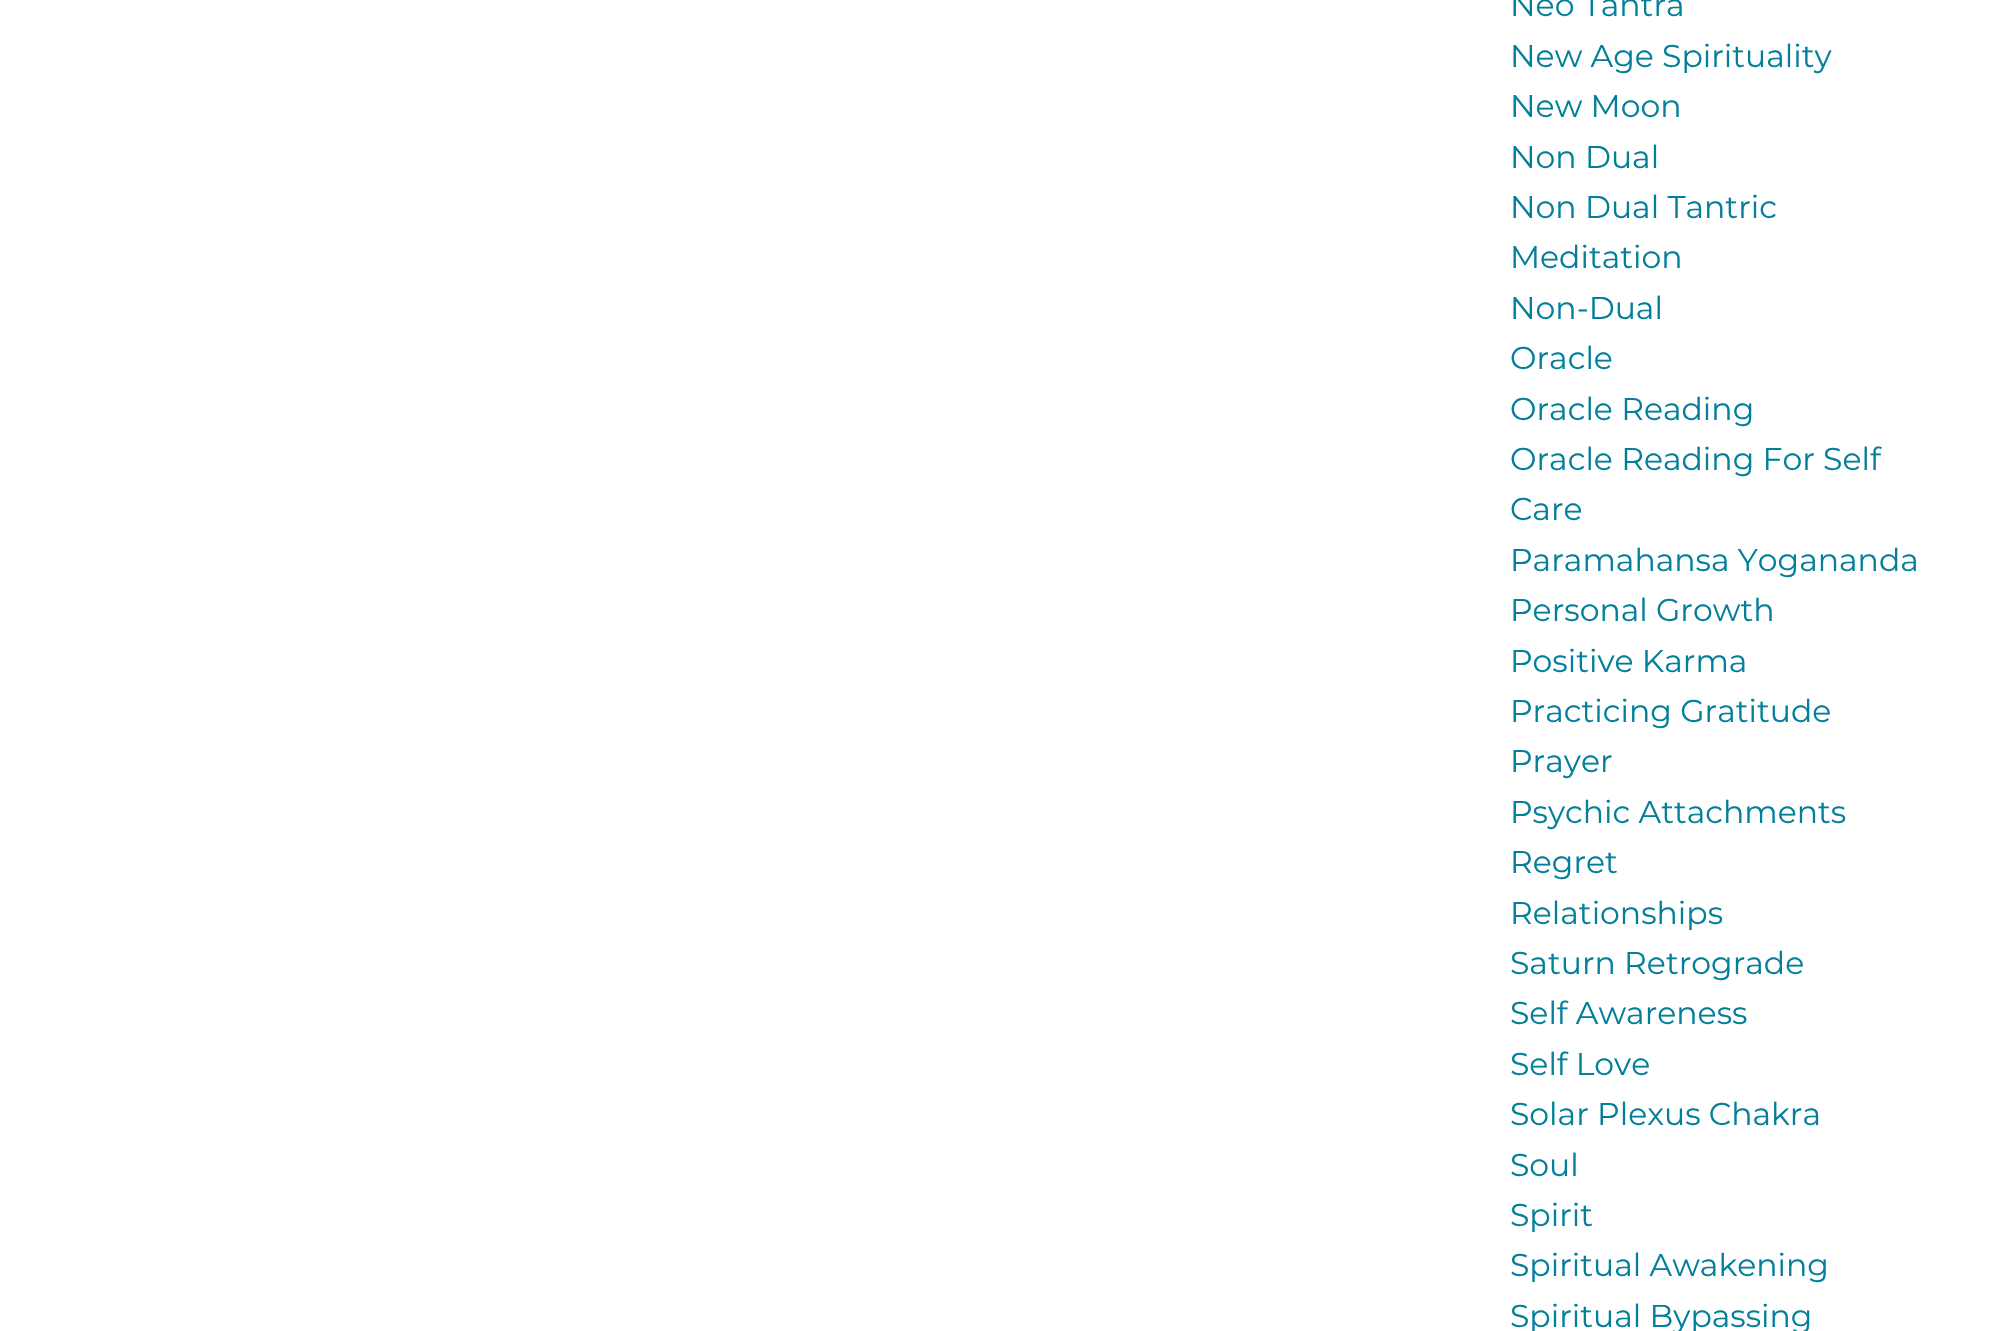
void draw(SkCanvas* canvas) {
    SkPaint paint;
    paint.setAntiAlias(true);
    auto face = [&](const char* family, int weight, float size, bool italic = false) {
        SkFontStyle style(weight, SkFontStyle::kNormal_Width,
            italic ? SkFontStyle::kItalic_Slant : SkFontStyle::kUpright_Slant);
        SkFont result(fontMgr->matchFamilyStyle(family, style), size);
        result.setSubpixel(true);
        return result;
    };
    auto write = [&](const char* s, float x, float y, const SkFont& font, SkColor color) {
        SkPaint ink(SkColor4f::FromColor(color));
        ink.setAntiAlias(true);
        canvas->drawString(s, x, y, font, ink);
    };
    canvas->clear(SK_ColorWHITE);
    auto kFont1 = face("Montserrat", 400, 31.5f);
    write("Neo Tantra", 1510, 16, kFont1, SkColorSetRGB(3, 127, 155));
    write("New Age Spirituality", 1510, 67, kFont1, SkColorSetRGB(3, 127, 155));
    write("New Moon", 1510, 117, kFont1, SkColorSetRGB(3, 127, 155));
    write("Non Dual", 1510, 168, kFont1, SkColorSetRGB(3, 127, 155));
    write("Non Dual Tantric", 1510, 218, kFont1, SkColorSetRGB(3, 127, 155));
    write("Meditation", 1510, 268, kFont1, SkColorSetRGB(3, 127, 155));
    write("Non-Dual", 1510, 319, kFont1, SkColorSetRGB(3, 127, 155));
    write("Oracle", 1510, 369, kFont1, SkColorSetRGB(3, 127, 155));
    write("Oracle Reading", 1510, 420, kFont1, SkColorSetRGB(3, 127, 155));
    write("Oracle Reading For Self", 1510, 470, kFont1, SkColorSetRGB(3, 127, 155));
    write("Care", 1510, 520, kFont1, SkColorSetRGB(3, 127, 155));
    write("Paramahansa Yogananda", 1510, 571, kFont1, SkColorSetRGB(3, 127, 155));
    write("Personal Growth", 1510, 621, kFont1, SkColorSetRGB(3, 127, 155));
    write("Positive Karma", 1510, 672, kFont1, SkColorSetRGB(3, 127, 155));
    write("Practicing Gratitude", 1510, 722, kFont1, SkColorSetRGB(3, 127, 155));
    write("Prayer", 1510, 772, kFont1, SkColorSetRGB(3, 127, 155));
    write("Psychic Attachments", 1510, 823, kFont1, SkColorSetRGB(3, 127, 155));
    write("Regret", 1510, 873, kFont1, SkColorSetRGB(3, 127, 155));
    write("Relationships", 1510, 924, kFont1, SkColorSetRGB(3, 127, 155));
    write("Saturn Retrograde", 1510, 974, kFont1, SkColorSetRGB(3, 127, 155));
    write("Self Awareness", 1510, 1024, kFont1, SkColorSetRGB(3, 127, 155));
    write("Self Love", 1510, 1075, kFont1, SkColorSetRGB(3, 127, 155));
    write("Solar Plexus Chakra", 1510, 1125, kFont1, SkColorSetRGB(3, 127, 155));
    write("Soul", 1510, 1176, kFont1, SkColorSetRGB(3, 127, 155));
    write("Spirit", 1510, 1226, kFont1, SkColorSetRGB(3, 127, 155));
    write("Spiritual Awakening", 1510, 1276, kFont1, SkColorSetRGB(3, 127, 155));
    write("Spiritual Bypassing", 1510, 1327, kFont1, SkColorSetRGB(3, 127, 155));
}
